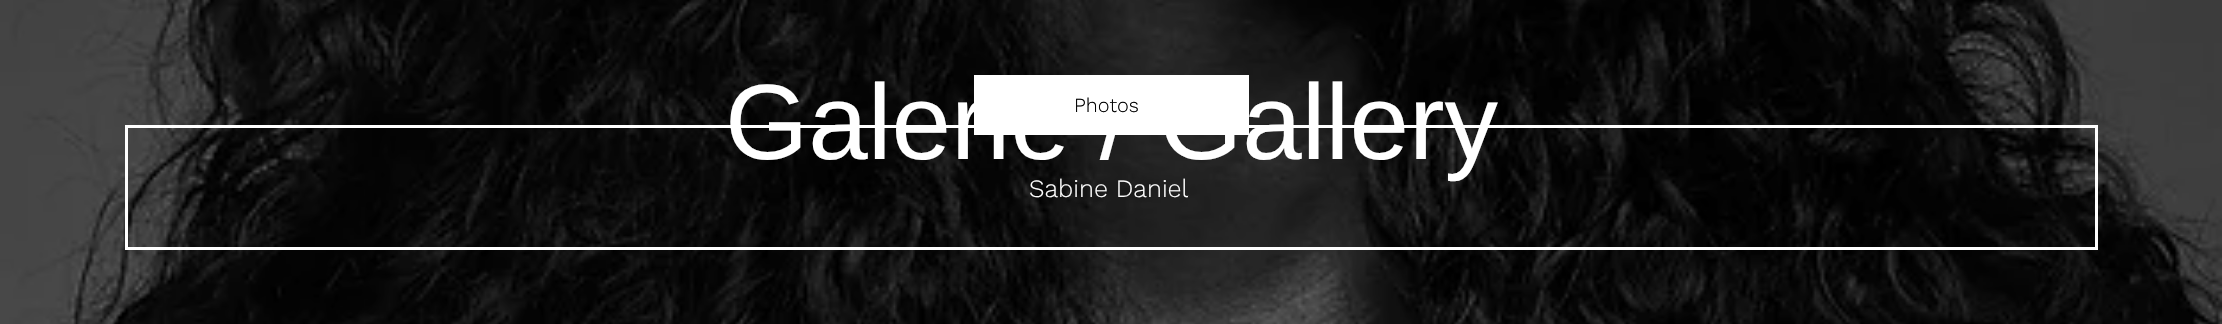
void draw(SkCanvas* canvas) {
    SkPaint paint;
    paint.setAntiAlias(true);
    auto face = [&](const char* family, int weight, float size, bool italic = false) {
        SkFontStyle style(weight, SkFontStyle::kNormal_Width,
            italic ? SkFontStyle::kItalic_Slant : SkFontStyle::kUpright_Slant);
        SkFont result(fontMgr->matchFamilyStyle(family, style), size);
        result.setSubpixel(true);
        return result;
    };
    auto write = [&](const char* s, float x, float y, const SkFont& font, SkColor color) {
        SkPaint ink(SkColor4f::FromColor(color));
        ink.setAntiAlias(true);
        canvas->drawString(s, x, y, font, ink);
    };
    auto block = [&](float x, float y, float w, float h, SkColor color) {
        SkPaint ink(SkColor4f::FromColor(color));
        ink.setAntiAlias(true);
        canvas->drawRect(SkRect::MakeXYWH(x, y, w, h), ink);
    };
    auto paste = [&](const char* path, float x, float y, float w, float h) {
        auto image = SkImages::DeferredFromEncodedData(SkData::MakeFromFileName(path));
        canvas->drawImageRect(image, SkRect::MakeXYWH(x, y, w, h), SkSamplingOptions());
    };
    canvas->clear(SK_ColorBLACK);
    paste("pic1.png", 0, 0, 2222, 324);
    paint.setStyle(SkPaint::kStroke_Style);
    paint.setStrokeWidth(3);
    paint.setColor(SK_ColorWHITE);
    canvas->drawRect(SkRect::MakeXYWH(126.5f, 126.5f, 1970, 122), paint);
    auto kFont1 = face("Liberation Sans", 400, 107);
    write("Galerie / Gallery", 725, 159, kFont1, SK_ColorWHITE);
    block(974, 75, 275, 60, SK_ColorWHITE);
    auto kFont2 = face("Work Sans", 300, 20);
    write("Photos", 1074, 112, kFont2, SK_ColorBLACK);
    auto kFont3 = face("Work Sans", 300, 25);
    write("Sabine Daniel", 1029, 197, kFont3, SK_ColorWHITE);
}
